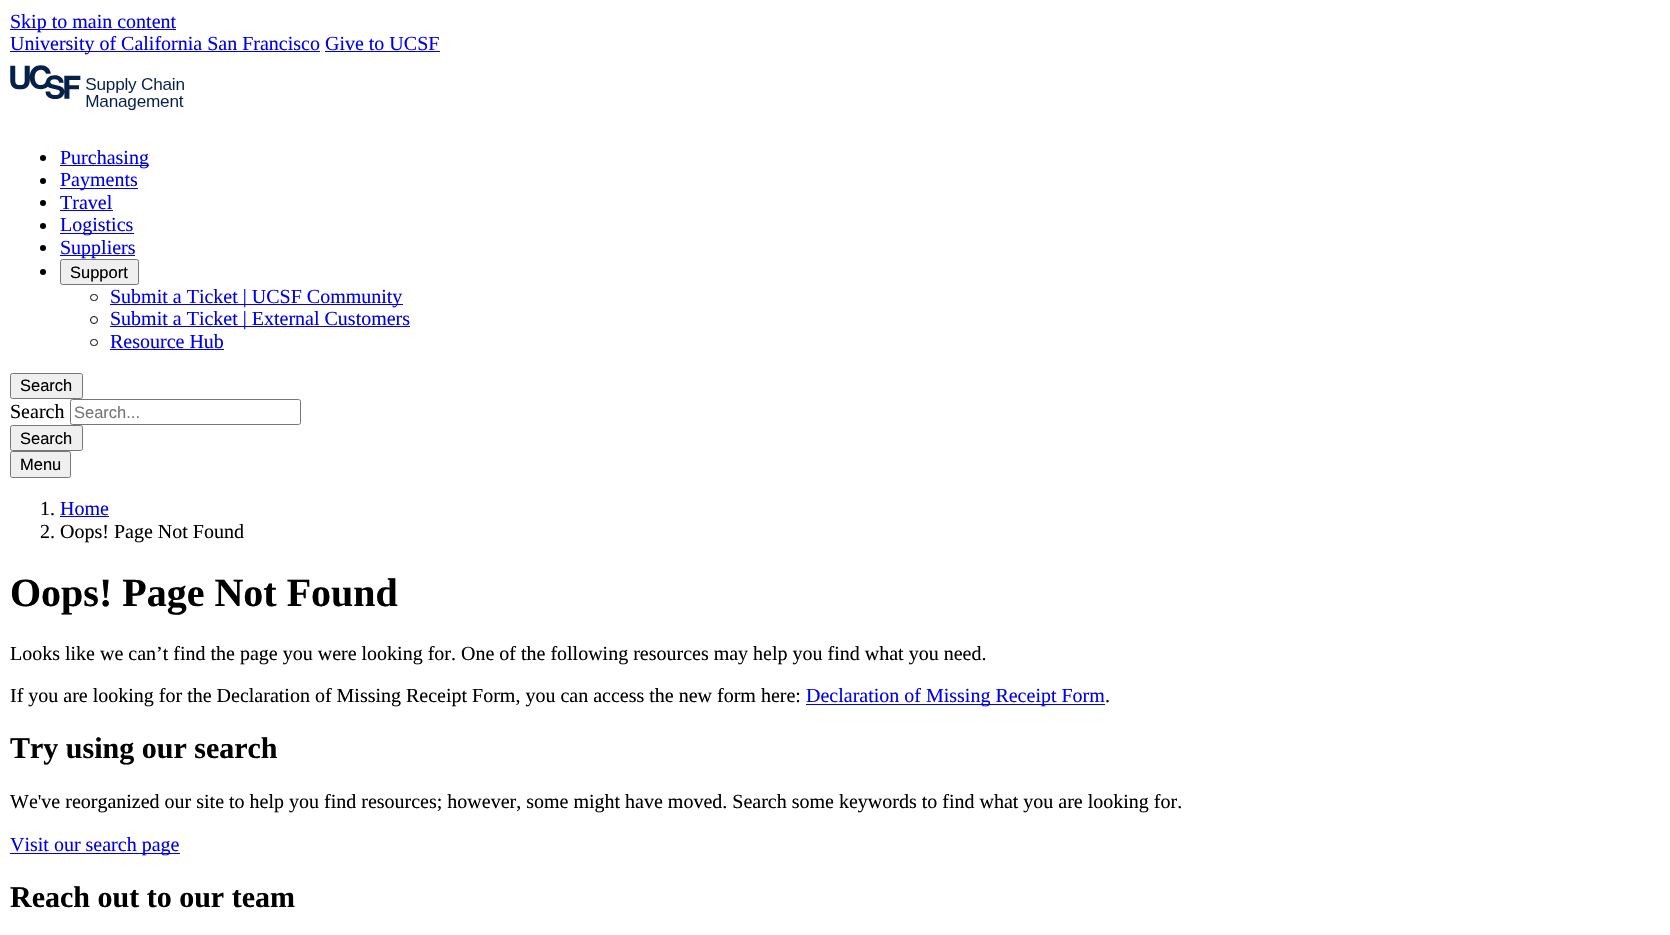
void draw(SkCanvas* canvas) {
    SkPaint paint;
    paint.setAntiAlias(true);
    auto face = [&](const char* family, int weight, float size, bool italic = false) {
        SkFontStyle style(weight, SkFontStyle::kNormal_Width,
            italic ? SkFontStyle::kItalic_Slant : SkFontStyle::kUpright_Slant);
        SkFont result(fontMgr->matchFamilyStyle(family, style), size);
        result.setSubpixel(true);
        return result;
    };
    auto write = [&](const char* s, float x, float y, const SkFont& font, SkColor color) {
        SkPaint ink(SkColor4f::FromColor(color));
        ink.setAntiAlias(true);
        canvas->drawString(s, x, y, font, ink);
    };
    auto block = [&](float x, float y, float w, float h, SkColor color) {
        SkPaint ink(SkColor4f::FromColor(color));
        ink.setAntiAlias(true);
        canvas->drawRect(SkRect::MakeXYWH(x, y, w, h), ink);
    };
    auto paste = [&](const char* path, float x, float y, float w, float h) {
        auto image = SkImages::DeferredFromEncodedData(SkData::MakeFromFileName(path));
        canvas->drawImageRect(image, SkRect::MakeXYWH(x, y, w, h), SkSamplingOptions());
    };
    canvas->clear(SK_ColorWHITE);
    block(10, 29, 166, 1, SkColorSetRGB(0, 0, 238));
    auto kFont1 = face("Liberation Serif", 400, 20);
    write("Skip to main content", 10, 28, kFont1, SkColorSetRGB(0, 0, 238));
    block(10, 51, 310, 1, SkColorSetRGB(0, 0, 238));
    write("University of California San Francisco Give to UCSF", 10, 50, kFont1, SkColorSetRGB(0, 0, 238));
    block(325, 51, 115, 1, SkColorSetRGB(0, 0, 238));
    paste("pic1.png", 10, 65, 174, 45);
    paint.setColor(SK_ColorBLACK);
    canvas->drawCircle(43, 158, 3, paint);
    block(60, 165, 89, 1, SkColorSetRGB(0, 0, 238));
    write("Purchasing", 60, 164, kFont1, SkColorSetRGB(0, 0, 238));
    canvas->drawCircle(43, 181, 3, paint);
    block(60, 188, 78, 1, SkColorSetRGB(0, 0, 238));
    write("Payments", 60, 186, kFont1, SkColorSetRGB(0, 0, 238));
    canvas->drawCircle(43, 203, 3, paint);
    write("Travel", 60, 209, kFont1, SkColorSetRGB(0, 0, 238));
    block(60, 210, 53, 1, SkColorSetRGB(0, 0, 238));
    canvas->drawCircle(43, 226, 3, paint);
    block(60, 233, 74, 1, SkColorSetRGB(0, 0, 238));
    write("Logistics", 60, 231, kFont1, SkColorSetRGB(0, 0, 238));
    canvas->drawCircle(43, 248, 3, paint);
    block(60, 255, 75, 1, SkColorSetRGB(0, 0, 238));
    write("Suppliers", 60, 254, kFont1, SkColorSetRGB(0, 0, 238));
    canvas->drawCircle(43, 272, 3, paint);
    paint.setColor(SkColorSetRGB(239, 239, 239));
    canvas->drawRoundRect(SkRect::MakeXYWH(60.5f, 259.5f, 78, 25), 2, 2, paint);
    paint.setStyle(SkPaint::kStroke_Style);
    paint.setStrokeWidth(1);
    paint.setColor(SkColorSetRGB(118, 118, 118));
    canvas->drawRoundRect(SkRect::MakeXYWH(60.5f, 259.5f, 78, 25), 2, 2, paint);
    auto kFont2 = face("Liberation Sans", 400, 16.5f);
    write("Support", 70, 278, kFont2, SK_ColorBLACK);
    paint.setColor(SK_ColorBLACK);
    canvas->drawRoundRect(SkRect::MakeXYWH(90.5f, 294.5f, 7, 6), 3, 3, paint);
    block(110, 304, 293, 1, SkColorSetRGB(0, 0, 238));
    write("Submit a Ticket | UCSF Community", 110, 303, kFont1, SkColorSetRGB(0, 0, 238));
    canvas->drawCircle(94, 320, 3.5f, paint);
    block(110, 326, 300, 1, SkColorSetRGB(0, 0, 238));
    write("Submit a Ticket | External Customers", 110, 325, kFont1, SkColorSetRGB(0, 0, 238));
    canvas->drawRoundRect(SkRect::MakeXYWH(90.5f, 339.5f, 7, 6), 3, 3, paint);
    write("Resource Hub", 110, 348, kFont1, SkColorSetRGB(0, 0, 238));
    block(110, 349, 114, 1, SkColorSetRGB(0, 0, 238));
    paint.setStyle(SkPaint::kFill_Style);
    paint.setColor(SkColorSetRGB(239, 239, 239));
    canvas->drawRoundRect(SkRect::MakeXYWH(10.5f, 373.5f, 72, 25), 2, 2, paint);
    paint.setStyle(SkPaint::kStroke_Style);
    paint.setColor(SkColorSetRGB(118, 118, 118));
    canvas->drawRoundRect(SkRect::MakeXYWH(10.5f, 373.5f, 72, 25), 2, 2, paint);
    write("Search", 20, 391, kFont2, SK_ColorBLACK);
    write("Search", 10, 418, kFont1, SK_ColorBLACK);
    canvas->drawRoundRect(SkRect::MakeXYWH(70.5f, 399.5f, 230, 25), 2, 2, paint);
    write("Search...", 74, 418, kFont2, SkColorSetRGB(117, 117, 117));
    paint.setStyle(SkPaint::kFill_Style);
    paint.setColor(SkColorSetRGB(239, 239, 239));
    canvas->drawRoundRect(SkRect::MakeXYWH(10.5f, 425.5f, 72, 25), 2, 2, paint);
    paint.setStyle(SkPaint::kStroke_Style);
    paint.setColor(SkColorSetRGB(118, 118, 118));
    canvas->drawRoundRect(SkRect::MakeXYWH(10.5f, 425.5f, 72, 25), 2, 2, paint);
    write("Search", 20, 444, kFont2, SK_ColorBLACK);
    paint.setStyle(SkPaint::kFill_Style);
    paint.setColor(SkColorSetRGB(239, 239, 239));
    canvas->drawRoundRect(SkRect::MakeXYWH(10.5f, 451.5f, 60, 26), 2, 2, paint);
    paint.setStyle(SkPaint::kStroke_Style);
    paint.setColor(SkColorSetRGB(118, 118, 118));
    canvas->drawRoundRect(SkRect::MakeXYWH(10.5f, 451.5f, 60, 26), 2, 2, paint);
    write("Menu", 20, 470, kFont2, SK_ColorBLACK);
    write("1.", 40, 515, kFont1, SK_ColorBLACK);
    write("Home", 60, 515, kFont1, SkColorSetRGB(0, 0, 238));
    block(60, 516, 49, 1, SkColorSetRGB(0, 0, 238));
    write("2. Oops! Page Not Found", 40, 538, kFont1, SK_ColorBLACK);
    auto kFont3 = face("Liberation Serif", 700, 40);
    write("Oops! Page Not Found", 10, 606, kFont3, SK_ColorBLACK);
    write("Looks like we can’t find the page you were looking for. One of the following resources may help you find what you need.", 10, 660, kFont1, SK_ColorBLACK);
    write("If you are looking for the Declaration of Missing Receipt Form, you can access the new form here:", 10, 702, kFont1, SK_ColorBLACK);
    block(806, 704, 299, 1, SkColorSetRGB(0, 0, 238));
    write("Declaration of Missing Receipt Form", 806, 702, kFont1, SkColorSetRGB(0, 0, 238));
    write(".", 1105, 702, kFont1, SK_ColorBLACK);
    auto kFont4 = face("Liberation Serif", 700, 30);
    write("Try using our search", 10, 758, kFont4, SK_ColorBLACK);
    write("We've reorganized our site to help you find resources; however, some might have moved. Search some keywords to find what you are looking for.", 10, 808, kFont1, SK_ColorBLACK);
    block(10, 853, 170, 1, SkColorSetRGB(0, 0, 238));
    write("Visit our search page", 10, 851, kFont1, SkColorSetRGB(0, 0, 238));
    write("Reach out to our team", 10, 907, kFont4, SK_ColorBLACK);
}
